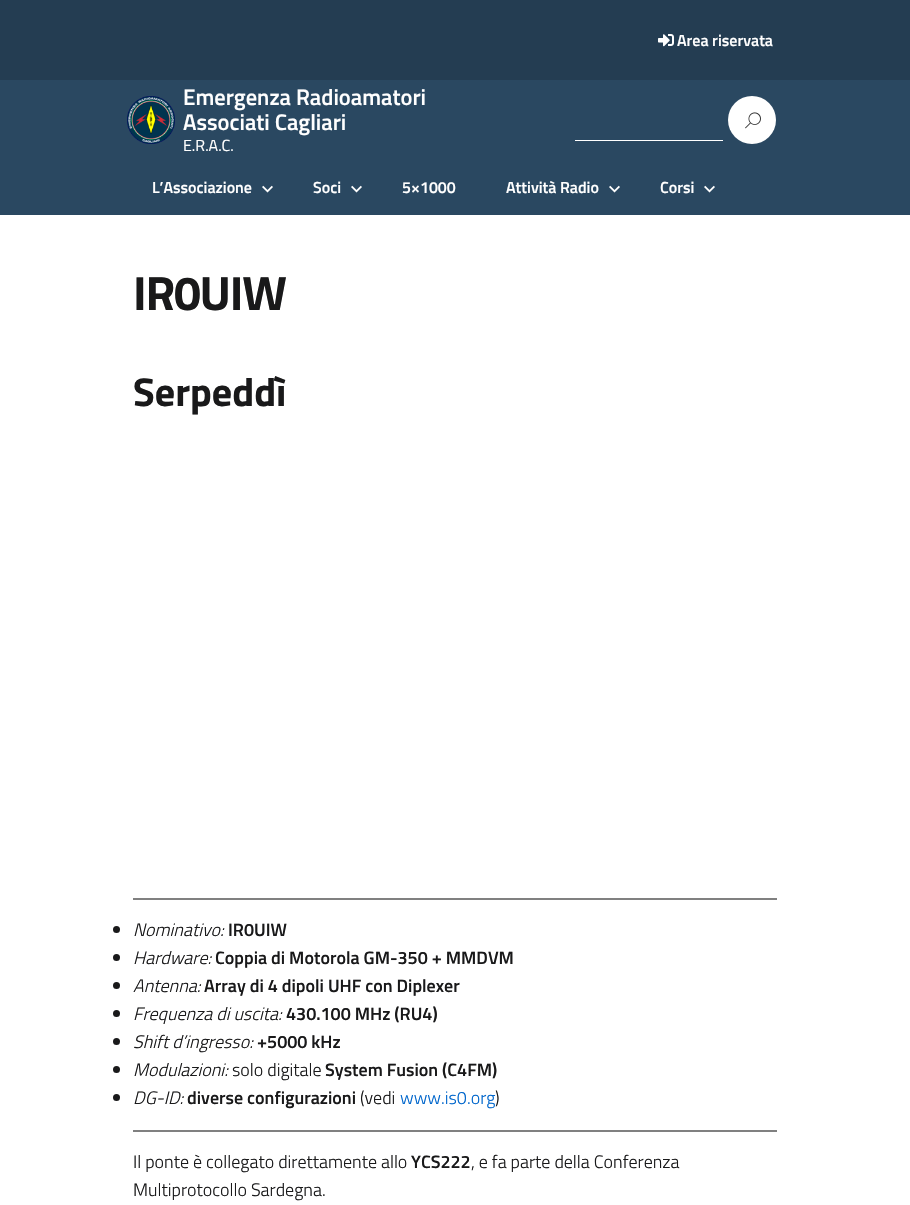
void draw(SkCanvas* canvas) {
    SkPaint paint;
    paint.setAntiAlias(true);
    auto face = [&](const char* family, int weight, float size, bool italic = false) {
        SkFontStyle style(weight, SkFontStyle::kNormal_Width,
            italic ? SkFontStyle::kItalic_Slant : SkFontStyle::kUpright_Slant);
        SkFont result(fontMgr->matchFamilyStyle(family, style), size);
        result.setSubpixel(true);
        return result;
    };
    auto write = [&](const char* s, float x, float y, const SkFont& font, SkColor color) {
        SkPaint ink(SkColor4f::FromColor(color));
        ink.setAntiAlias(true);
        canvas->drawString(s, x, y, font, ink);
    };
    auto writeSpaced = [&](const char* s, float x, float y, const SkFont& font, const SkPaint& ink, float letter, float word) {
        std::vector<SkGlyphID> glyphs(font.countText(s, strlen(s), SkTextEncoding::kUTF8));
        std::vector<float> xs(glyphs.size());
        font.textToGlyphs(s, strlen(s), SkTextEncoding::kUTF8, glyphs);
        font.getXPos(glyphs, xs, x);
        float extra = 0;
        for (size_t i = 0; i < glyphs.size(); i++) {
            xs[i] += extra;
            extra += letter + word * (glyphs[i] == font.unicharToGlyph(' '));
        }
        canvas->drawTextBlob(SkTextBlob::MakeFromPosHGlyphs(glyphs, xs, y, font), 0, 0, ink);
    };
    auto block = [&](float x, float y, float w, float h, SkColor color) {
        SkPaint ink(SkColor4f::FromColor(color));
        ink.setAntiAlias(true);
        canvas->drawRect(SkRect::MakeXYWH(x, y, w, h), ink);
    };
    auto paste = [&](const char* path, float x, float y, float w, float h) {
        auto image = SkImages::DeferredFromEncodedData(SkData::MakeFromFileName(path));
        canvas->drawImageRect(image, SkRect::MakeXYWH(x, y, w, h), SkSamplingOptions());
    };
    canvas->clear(SK_ColorWHITE);
    block(0, 80, 910, 135, SkColorSetRGB(42, 72, 97));
    block(0, 0, 910, 80, SkColorSetRGB(36, 61, 82));
    paste("pic1.png", 658, 34, 16, 13);
    auto kFont1 = face("Titillium Web", 600, 16);
    write("Area riservata", 677, 46, kFont1, SK_ColorWHITE);
    paste("pic2.png", 127, 96, 48, 48);
    auto kFont2 = face("Titillium Web", 600, 22.5f);
    write("Emergenza Radioamatori", 183, 105, kFont2, SK_ColorWHITE);
    write("Associati Cagliari", 183, 130, kFont2, SK_ColorWHITE);
    auto kFont3 = face("Titillium Web", 400, 16);
    write("E.R.A.C.", 183, 151, kFont3, SK_ColorWHITE);
    block(575, 140, 148, 1, SK_ColorWHITE);
    paint.setColor(SK_ColorWHITE);
    canvas->drawCircle(752, 120, 24, paint);
    paste("pic3.png", 745, 112, 16, 17);
    write("L’Associazione", 152, 193, kFont1, SK_ColorWHITE);
    paste("pic4.png", 262, 185, 11, 8);
    write("Soci", 313, 193, kFont1, SK_ColorWHITE);
    paste("pic4.png", 351, 185, 11, 8);
    write("5×1000", 402, 193, kFont1, SK_ColorWHITE);
    write("Attività Radio", 506, 193, kFont1, SK_ColorWHITE);
    paste("pic4.png", 609, 185, 11, 8);
    write("Corsi", 660, 193, kFont1, SK_ColorWHITE);
    paste("pic4.png", 704, 185, 11, 8);
    auto kFont4 = face("Titillium Web", 700, 48);
    paint.setColor(SkColorSetRGB(25, 25, 26));
    writeSpaced("IR0UIW", 133, 310, kFont4, paint, -1.25f, 0);
    auto kFont5 = face("Titillium Web", 700, 40);
    write("Serpeddì", 133, 406, kFont5, SkColorSetRGB(25, 25, 26));
    block(133, 898, 644, 2, SkColorSetRGB(128, 128, 128));
    canvas->drawCircle(116.5f, 929.5f, 3.5f, paint);
    auto kFont6 = face("Titillium Web", 300, 18, true);
    write("Nominativo:", 133, 936, kFont6, SkColorSetRGB(25, 25, 26));
    auto kFont7 = face("Titillium Web", 600, 18);
    write("IR0UIW", 228, 936, kFont7, SkColorSetRGB(25, 25, 26));
    canvas->drawCircle(116.5f, 957.5f, 3.5f, paint);
    write("Hardware:", 133, 964, kFont6, SkColorSetRGB(25, 25, 26));
    write("Coppia di Motorola GM-350 + MMDVM", 215, 964, kFont7, SkColorSetRGB(25, 25, 26));
    canvas->drawCircle(116.5f, 985.5f, 3.5f, paint);
    write("Antenna:", 133, 992, kFont6, SkColorSetRGB(25, 25, 26));
    write("Array di 4 dipoli UHF con Diplexer", 204, 992, kFont7, SkColorSetRGB(25, 25, 26));
    canvas->drawCircle(116.5f, 1013.5f, 3.5f, paint);
    write("Frequenza di uscita:", 133, 1020, kFont6, SkColorSetRGB(25, 25, 26));
    write("430.100 MHz (RU4)", 286, 1020, kFont7, SkColorSetRGB(25, 25, 26));
    canvas->drawCircle(116.5f, 1041.5f, 3.5f, paint);
    write("Shift d’ingresso:", 133, 1048, kFont6, SkColorSetRGB(25, 25, 26));
    write("+5000 kHz", 257, 1048, kFont7, SkColorSetRGB(25, 25, 26));
    canvas->drawCircle(116.5f, 1069.5f, 3.5f, paint);
    write("Modulazioni:", 133, 1076, kFont6, SkColorSetRGB(25, 25, 26));
    auto kFont8 = face("Titillium Web", 300, 18);
    write("solo digitale", 232, 1076, kFont8, SkColorSetRGB(25, 25, 26));
    write("System Fusion (C4FM)", 325, 1076, kFont7, SkColorSetRGB(25, 25, 26));
    canvas->drawCircle(116.5f, 1097.5f, 3.5f, paint);
    write("DG-ID:", 133, 1104, kFont6, SkColorSetRGB(25, 25, 26));
    write("diverse configurazioni", 187, 1104, kFont7, SkColorSetRGB(25, 25, 26));
    write("(vedi", 360, 1104, kFont8, SkColorSetRGB(25, 25, 26));
    write("www.is0.org", 400, 1104, kFont8, SkColorSetRGB(0, 102, 204));
    write(")", 495, 1104, kFont8, SkColorSetRGB(25, 25, 26));
    block(133, 1130, 644, 2, SkColorSetRGB(128, 128, 128));
    write("Il ponte è collegato direttamente allo", 133, 1168, kFont8, SkColorSetRGB(25, 25, 26));
    write("YCS222", 411, 1168, kFont7, SkColorSetRGB(25, 25, 26));
    write(", e fa parte della Conferenza", 471, 1168, kFont8, SkColorSetRGB(25, 25, 26));
    write("Multiprotocollo Sardegna.", 133, 1196, kFont8, SkColorSetRGB(25, 25, 26));
}
